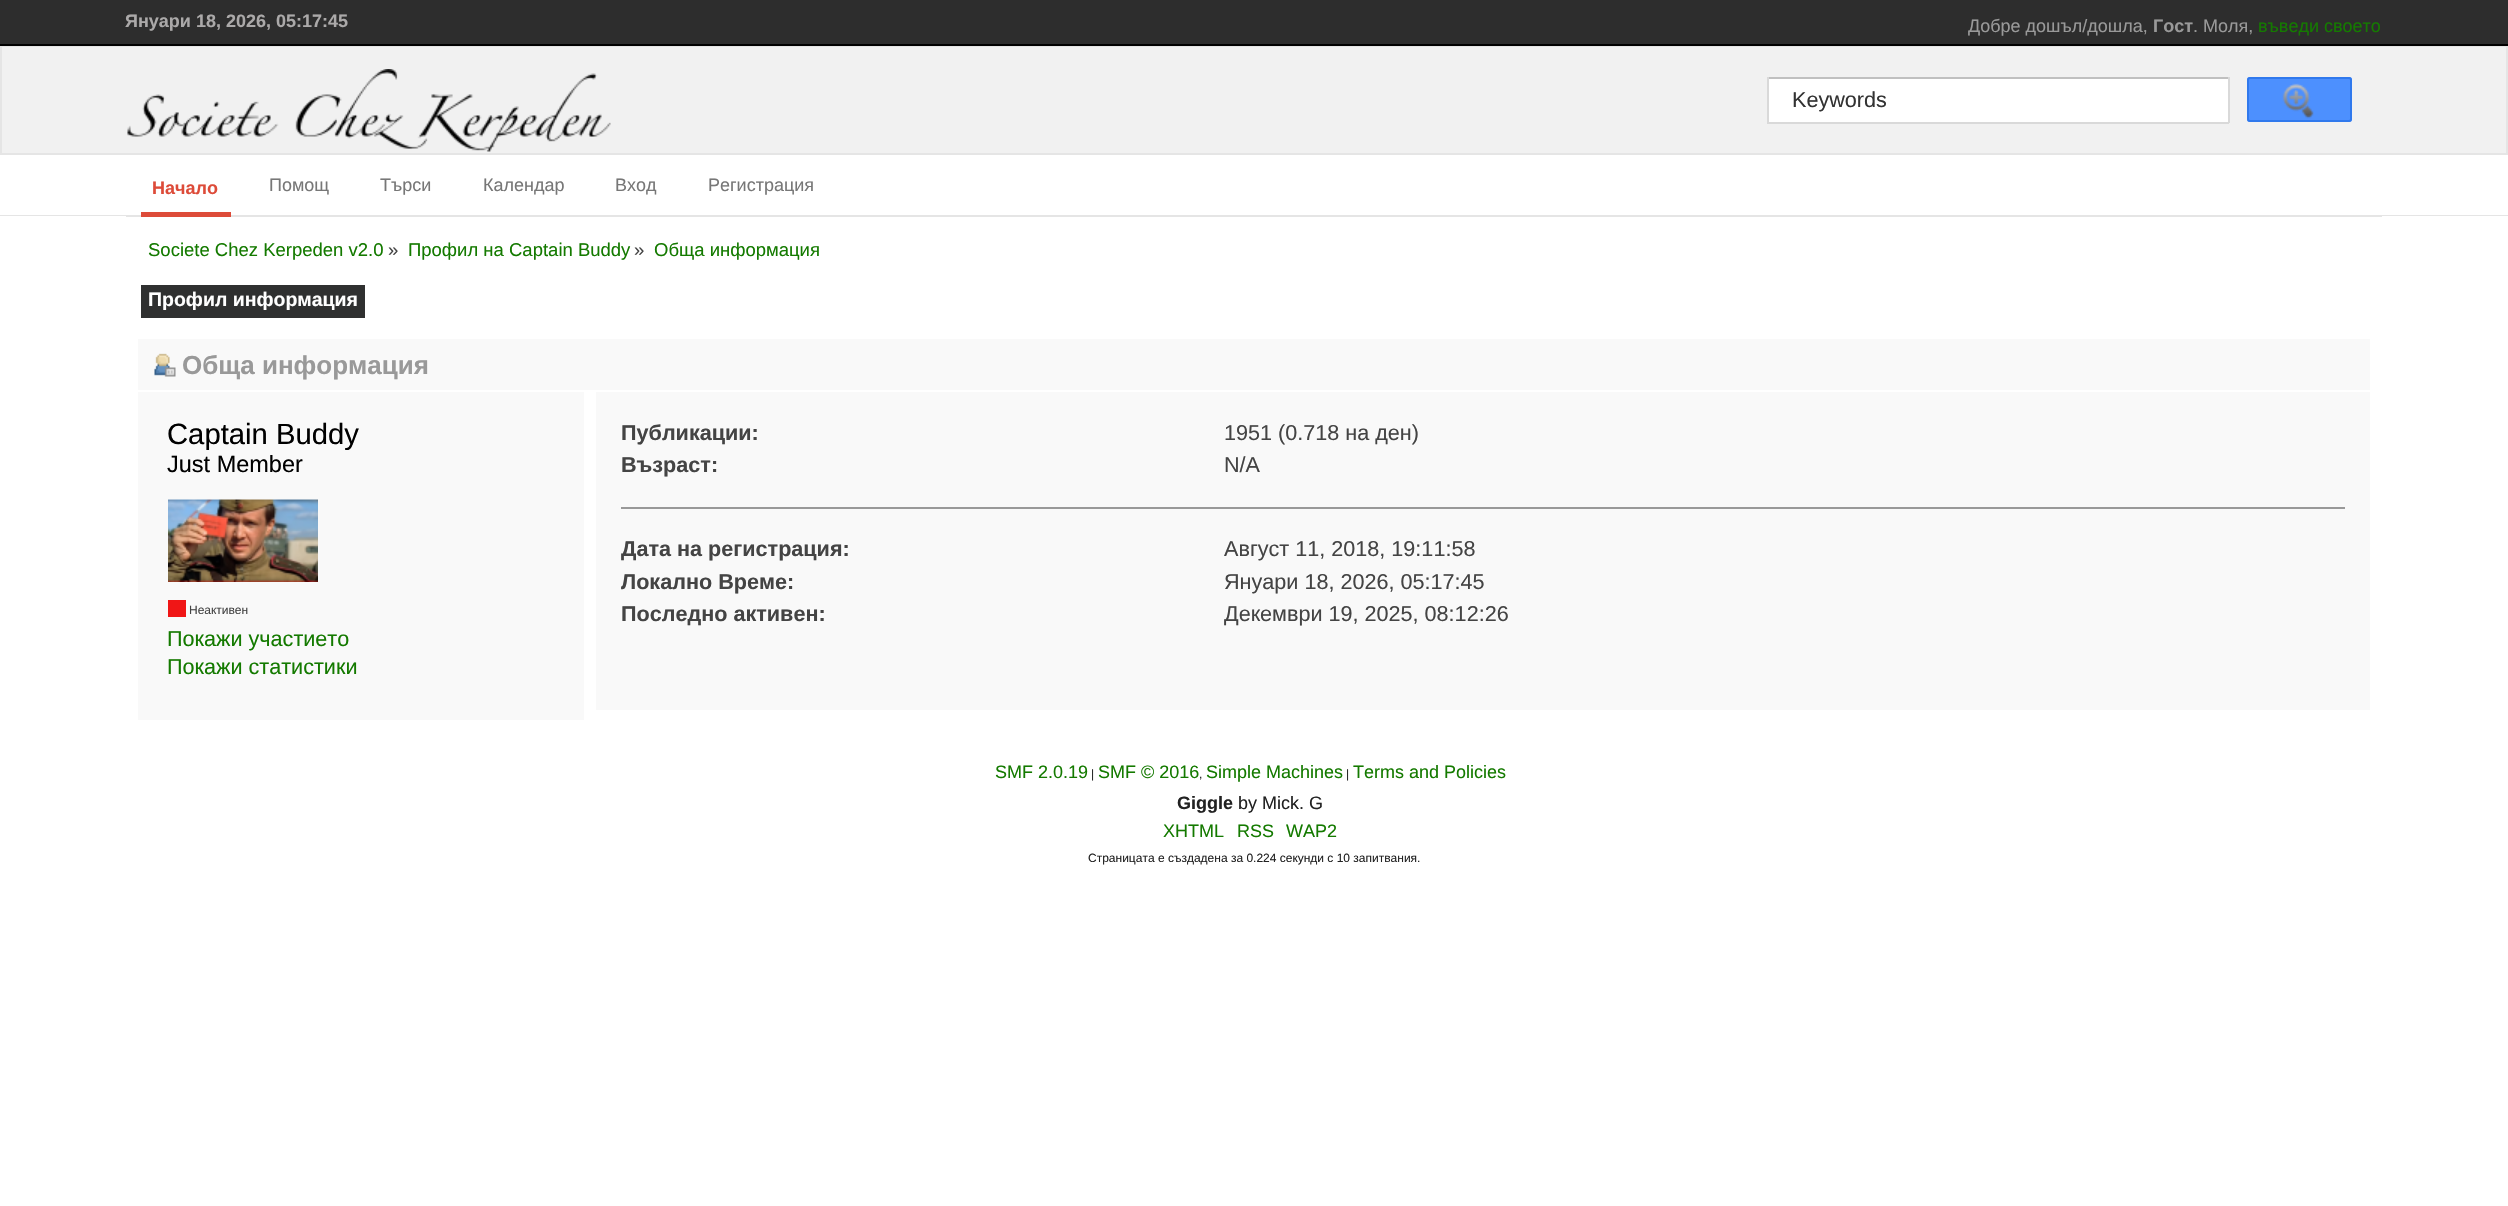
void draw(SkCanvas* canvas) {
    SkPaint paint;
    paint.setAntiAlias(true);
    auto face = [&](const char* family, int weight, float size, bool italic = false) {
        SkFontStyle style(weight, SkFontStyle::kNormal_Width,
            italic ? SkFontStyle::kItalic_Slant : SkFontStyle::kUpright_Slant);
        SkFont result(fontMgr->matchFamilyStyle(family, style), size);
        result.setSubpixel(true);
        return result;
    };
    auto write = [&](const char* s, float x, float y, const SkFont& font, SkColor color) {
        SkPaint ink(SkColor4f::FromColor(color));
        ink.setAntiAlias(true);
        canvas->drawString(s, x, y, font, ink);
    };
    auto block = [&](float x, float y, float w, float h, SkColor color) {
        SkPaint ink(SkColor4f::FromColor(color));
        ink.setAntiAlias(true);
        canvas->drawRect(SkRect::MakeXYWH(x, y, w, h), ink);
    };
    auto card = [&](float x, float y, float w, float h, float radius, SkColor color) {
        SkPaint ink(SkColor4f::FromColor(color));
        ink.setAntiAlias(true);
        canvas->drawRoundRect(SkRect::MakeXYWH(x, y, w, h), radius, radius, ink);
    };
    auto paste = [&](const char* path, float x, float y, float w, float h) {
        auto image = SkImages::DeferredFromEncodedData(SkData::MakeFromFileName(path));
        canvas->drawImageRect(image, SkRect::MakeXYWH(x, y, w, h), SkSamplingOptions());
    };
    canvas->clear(SK_ColorWHITE);
    block(0, 0, 2508, 44, SkColorSetRGB(45, 45, 45));
    paint.setColor(SkColorSetRGB(241, 241, 241));
    canvas->drawRect(SkRect::MakeXYWH(1, 46, 2506, 108), paint);
    paint.setStyle(SkPaint::kStroke_Style);
    paint.setStrokeWidth(2);
    paint.setColor(SkColorSetRGB(229, 229, 229));
    canvas->drawRect(SkRect::MakeXYWH(1, 46, 2506, 108), paint);
    block(0, 44, 2508, 2, SK_ColorBLACK);
    auto kFont1 = face("Liberation Sans", 700, 18);
    write("Януари 18, 2026, 05:17:45", 125, 27, kFont1, SkColorSetRGB(171, 169, 169));
    auto kFont2 = face("Liberation Sans", 400, 18);
    write("Добре дошъл/дошла,", 1968, 32, kFont2, SkColorSetRGB(153, 153, 153));
    write("Гост", 2153, 32, kFont1, SkColorSetRGB(153, 153, 153));
    write(". Моля,", 2193, 32, kFont2, SkColorSetRGB(153, 153, 153));
    write("въведи своето", 2258, 32, kFont2, SkColorSetRGB(20, 122, 0));
    paste("pic1.png", 127, 69, 484, 83);
    block(1769, 79, 459, 43, SK_ColorWHITE);
    block(1767, 77, 462, 2, SkColorSetRGB(192, 192, 192));
    block(2228, 77, 2, 46, SkColorSetRGB(217, 217, 217));
    block(1767, 122, 462, 2, SkColorSetRGB(217, 217, 217));
    block(1767, 77, 2, 46, SkColorSetRGB(217, 217, 217));
    auto kFont3 = face("Liberation Sans", 400, 21.6f);
    write("Keywords", 1792, 107, kFont3, SkColorSetRGB(51, 51, 51));
    card(2247, 77, 105, 45, 3, SkColorSetRGB(77, 144, 254));
    paste("pic2.png", 2282, 83, 32, 36);
    paint.setColor(SkColorSetRGB(48, 121, 237));
    canvas->drawRoundRect(SkRect::MakeXYWH(2248, 78, 103, 43), 2, 2, paint);
    block(0, 215, 2508, 1, SkColorSetRGB(229, 229, 229));
    block(126, 216, 2256, 1, SkColorSetRGB(229, 229, 229));
    block(141, 212, 90, 5, SkColorSetRGB(221, 75, 57));
    write("Начало", 152, 194, kFont1, SkColorSetRGB(221, 75, 57));
    write("Помощ", 269, 191, kFont2, SkColorSetRGB(119, 119, 119));
    write("Търси", 380, 191, kFont2, SkColorSetRGB(119, 119, 119));
    write("Календар", 483, 191, kFont2, SkColorSetRGB(119, 119, 119));
    write("Вход", 615, 191, kFont2, SkColorSetRGB(119, 119, 119));
    write("Регистрация", 708, 191, kFont2, SkColorSetRGB(119, 119, 119));
    auto kFont4 = face("Liberation Sans", 400, 18.5f);
    write("Societe Chez Kerpeden v2.0", 148, 256, kFont4, SkColorSetRGB(20, 122, 0));
    write("»", 388, 256, kFont4, SkColorSetRGB(68, 68, 68));
    write("Профил на Captain Buddy", 408, 256, kFont4, SkColorSetRGB(20, 122, 0));
    write("»", 634, 256, kFont4, SkColorSetRGB(68, 68, 68));
    write("Обща информация", 654, 256, kFont4, SkColorSetRGB(20, 122, 0));
    block(141, 285, 224, 33, SkColorSetRGB(47, 48, 48));
    auto kFont5 = face("Liberation Sans", 700, 19.5f);
    write("Профил информация", 148, 306, kFont5, SK_ColorWHITE);
    block(138, 339, 2232, 51, SkColorSetRGB(249, 249, 249));
    paste("pic3.png", 154, 353, 22, 24);
    auto kFont6 = face("Liberation Sans", 700, 26);
    write("Обща информация", 182, 374, kFont6, SkColorSetRGB(153, 153, 153));
    block(138, 392, 446, 328, SkColorSetRGB(249, 249, 249));
    auto kFont7 = face("Liberation Sans", 400, 29.25f);
    write("Captain Buddy", 167, 444, kFont7, SK_ColorBLACK);
    auto kFont8 = face("Liberation Sans", 400, 23.5f);
    write("Just Member", 167, 472, kFont8, SK_ColorBLACK);
    paste("pic4.png", 168, 499, 150, 83);
    block(168, 600, 18, 17, SkColorSetRGB(240, 22, 22));
    auto kFont9 = face("Liberation Sans", 400, 12);
    write("Неактивен", 189, 614, kFont9, SkColorSetRGB(68, 68, 68));
    write("Покажи участието", 167, 646, kFont3, SkColorSetRGB(20, 122, 0));
    write("Покажи статистики", 167, 674, kFont3, SkColorSetRGB(20, 122, 0));
    block(596, 392, 1774, 318, SkColorSetRGB(249, 249, 249));
    block(621, 507, 1724, 2, SkColorSetRGB(153, 153, 153));
    auto kFont10 = face("Liberation Sans", 700, 21.6f);
    write("Публикации:", 621, 440, kFont10, SkColorSetRGB(68, 68, 68));
    write("1951 (0.718 на ден)", 1224, 440, kFont3, SkColorSetRGB(68, 68, 68));
    write("Възраст:", 621, 472, kFont10, SkColorSetRGB(68, 68, 68));
    write("N/A", 1224, 472, kFont3, SkColorSetRGB(68, 68, 68));
    write("Дата на регистрация:", 621, 556, kFont10, SkColorSetRGB(68, 68, 68));
    write("Август 11, 2018, 19:11:58", 1224, 556, kFont3, SkColorSetRGB(68, 68, 68));
    write("Локално Време:", 621, 589, kFont10, SkColorSetRGB(68, 68, 68));
    write("Януари 18, 2026, 05:17:45", 1224, 589, kFont3, SkColorSetRGB(68, 68, 68));
    write("Последно активен:", 621, 621, kFont10, SkColorSetRGB(68, 68, 68));
    write("Декември 19, 2025, 08:12:26", 1224, 621, kFont3, SkColorSetRGB(68, 68, 68));
    write("SMF 2.0.19", 995, 778, kFont2, SkColorSetRGB(20, 122, 0));
    write("|", 1091, 778, kFont9, SkColorSetRGB(34, 34, 34));
    write("SMF © 2016", 1098, 778, kFont2, SkColorSetRGB(20, 122, 0));
    write(",", 1199, 778, kFont9, SkColorSetRGB(34, 34, 34));
    write("Simple Machines", 1206, 778, kFont2, SkColorSetRGB(20, 122, 0));
    write("|", 1346, 778, kFont9, SkColorSetRGB(34, 34, 34));
    write("Terms and Policies", 1353, 778, kFont2, SkColorSetRGB(20, 122, 0));
    write("Giggle", 1177, 809, kFont1, SkColorSetRGB(34, 34, 34));
    write("by Mick. G", 1238, 809, kFont2, SkColorSetRGB(34, 34, 34));
    write("XHTML", 1163, 837, kFont2, SkColorSetRGB(20, 122, 0));
    write("RSS", 1237, 837, kFont2, SkColorSetRGB(20, 122, 0));
    write("WAP2", 1286, 837, kFont2, SkColorSetRGB(20, 122, 0));
    write("Страницата е създадена за 0.224 секунди с 10 запитвания.", 1088, 862, kFont9, SkColorSetRGB(34, 34, 34));
}
